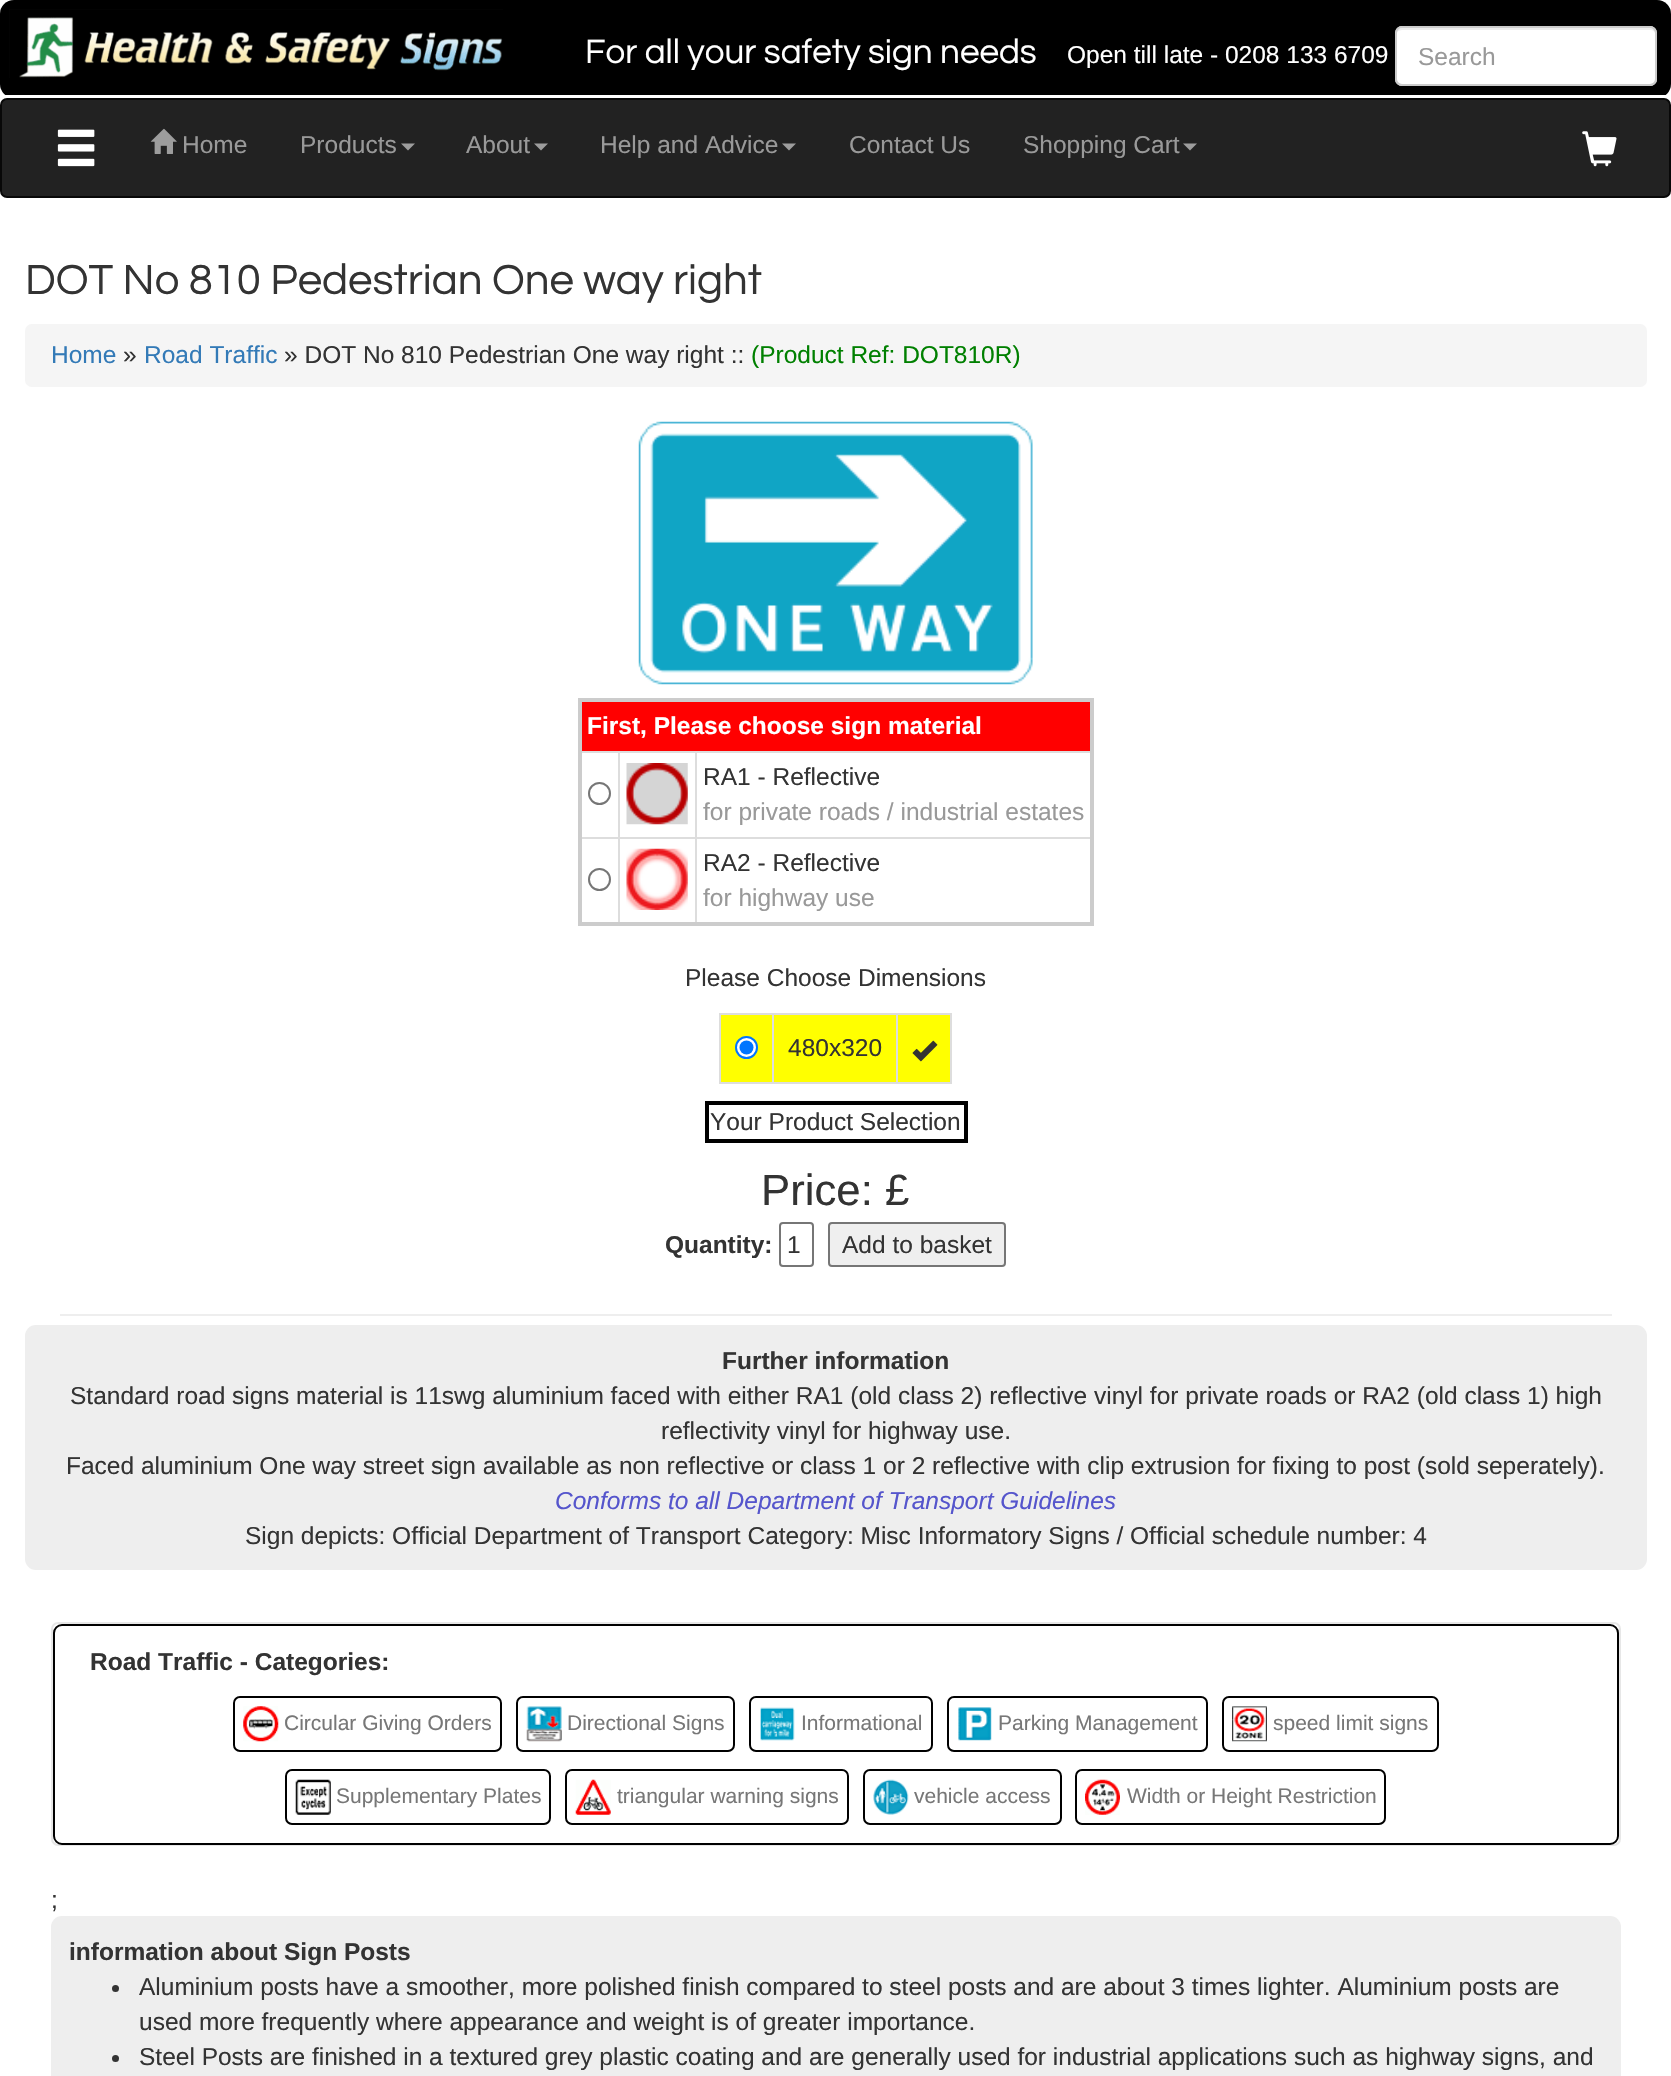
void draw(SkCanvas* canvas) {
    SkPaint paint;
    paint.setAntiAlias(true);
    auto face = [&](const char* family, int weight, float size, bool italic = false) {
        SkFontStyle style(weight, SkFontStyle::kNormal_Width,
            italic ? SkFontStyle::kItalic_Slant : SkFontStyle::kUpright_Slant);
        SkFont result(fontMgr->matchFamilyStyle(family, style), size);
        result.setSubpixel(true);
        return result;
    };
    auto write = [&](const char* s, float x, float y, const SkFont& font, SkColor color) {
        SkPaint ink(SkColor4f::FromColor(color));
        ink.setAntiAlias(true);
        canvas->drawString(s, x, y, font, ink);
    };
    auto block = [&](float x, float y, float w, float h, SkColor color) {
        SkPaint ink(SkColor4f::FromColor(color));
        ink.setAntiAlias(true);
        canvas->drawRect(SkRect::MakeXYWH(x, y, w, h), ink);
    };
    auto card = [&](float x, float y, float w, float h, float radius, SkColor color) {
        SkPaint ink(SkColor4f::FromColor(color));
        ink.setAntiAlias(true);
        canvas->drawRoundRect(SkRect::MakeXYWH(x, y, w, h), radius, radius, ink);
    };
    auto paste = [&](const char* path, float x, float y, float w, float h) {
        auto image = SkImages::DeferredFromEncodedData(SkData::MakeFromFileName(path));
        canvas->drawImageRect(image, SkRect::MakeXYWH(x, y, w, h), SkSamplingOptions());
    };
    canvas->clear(SK_ColorWHITE);
    card(0, 0, 1671, 98, 14, SK_ColorBLACK);
    paste("pic1.png", 9, 9, 494, 69);
    auto kFont1 = face("Questrial", 400, 35);
    write("For all your safety sign needs", 585, 63, kFont1, SK_ColorWHITE);
    auto kFont2 = face("Liberation Sans", 400, 24.5f);
    write("Open till late - 0208 133 6709", 1067, 63, kFont2, SK_ColorWHITE);
    card(1395, 26, 262, 60, 7, SK_ColorWHITE);
    paint.setColor(SkColorSetRGB(236, 236, 236));
    canvas->drawPath(SkPathBuilder().moveTo(1402, 30).lineTo(1650, 30).cubicTo(1653, 30, 1656, 32, 1656, 35).lineTo(1656, 33).cubicTo(1656, 30, 1654, 28, 1651, 28).lineTo(1402, 28).cubicTo(1400, 28, 1397, 30, 1397, 32).cubicTo(1398, 31, 1400, 30, 1402, 30).close().detach(), paint);
    paint.setStyle(SkPaint::kStroke_Style);
    paint.setStrokeWidth(2);
    paint.setColor(SkColorSetRGB(204, 204, 204));
    canvas->drawRoundRect(SkRect::MakeXYWH(1396, 27, 260, 58), 6, 6, paint);
    write("Search", 1418, 65, kFont2, SkColorSetRGB(153, 153, 153));
    block(0, 95, 1671, 3, SK_ColorWHITE);
    paint.setStyle(SkPaint::kFill_Style);
    paint.setColor(SkColorSetRGB(34, 34, 34));
    canvas->drawRoundRect(SkRect::MakeXYWH(1, 99, 1669, 98), 6, 6, paint);
    paint.setStyle(SkPaint::kStroke_Style);
    paint.setColor(SkColorSetRGB(8, 8, 8));
    canvas->drawRoundRect(SkRect::MakeXYWH(1, 99, 1669, 98), 6, 6, paint);
    paste("pic2.png", 57, 129, 38, 38);
    paste("pic3.png", 150, 128, 27, 26);
    write("Home", 182, 153, kFont2, SkColorSetRGB(153, 153, 153));
    write("Products", 300, 153, kFont2, SkColorSetRGB(153, 153, 153));
    paint.setStyle(SkPaint::kFill_Style);
    paint.setColor(SkColorSetRGB(157, 157, 157));
    canvas->drawPath(SkPathBuilder().moveTo(401, 143.5f).lineTo(415, 143.5f).lineTo(408, 150.5f).close().detach(), paint);
    write("About", 466, 153, kFont2, SkColorSetRGB(153, 153, 153));
    canvas->drawPath(SkPathBuilder().moveTo(534, 143.5f).lineTo(548, 143.5f).lineTo(541, 150.5f).close().detach(), paint);
    write("Help and Advice", 600, 153, kFont2, SkColorSetRGB(153, 153, 153));
    canvas->drawPath(SkPathBuilder().moveTo(782, 143.5f).lineTo(796, 143.5f).lineTo(789, 150.5f).close().detach(), paint);
    write("Contact Us", 849, 153, kFont2, SkColorSetRGB(153, 153, 153));
    write("Shopping Cart", 1023, 153, kFont2, SkColorSetRGB(153, 153, 153));
    canvas->drawPath(SkPathBuilder().moveTo(1183, 143.5f).lineTo(1197, 143.5f).lineTo(1190, 150.5f).close().detach(), paint);
    paste("pic4.png", 1582, 131, 35, 36);
    auto kFont3 = face("Questrial", 400, 43.75f);
    write("DOT No 810 Pedestrian One way right", 25, 294, kFont3, SkColorSetRGB(51, 51, 51));
    card(25, 324, 1622, 63, 7, SkColorSetRGB(245, 245, 245));
    write("Home", 51, 363, kFont2, SkColorSetRGB(51, 122, 183));
    write("»", 123, 363, kFont2, SkColorSetRGB(51, 51, 51));
    write("Road Traffic", 144, 363, kFont2, SkColorSetRGB(51, 122, 183));
    write("» DOT No 810 Pedestrian One way right ::", 284, 363, kFont2, SkColorSetRGB(51, 51, 51));
    write("(Product Ref: DOT810R)", 751, 363, kFont2, SkColorSetRGB(0, 128, 0));
    paste("pic5.png", 638, 421, 395, 264);
    block(578, 698, 516, 4, SkColorSetRGB(204, 204, 204));
    block(695, 751, 399, 2, SkColorSetRGB(221, 221, 221));
    block(695, 837, 399, 2, SkColorSetRGB(221, 221, 221));
    block(1090, 698, 4, 228, SkColorSetRGB(204, 204, 204));
    block(695, 837, 2, 87, SkColorSetRGB(221, 221, 221));
    block(618, 837, 79, 2, SkColorSetRGB(221, 221, 221));
    block(618, 837, 2, 87, SkColorSetRGB(221, 221, 221));
    block(578, 922, 516, 4, SkColorSetRGB(204, 204, 204));
    block(695, 751, 2, 87, SkColorSetRGB(221, 221, 221));
    block(618, 751, 79, 2, SkColorSetRGB(221, 221, 221));
    block(578, 837, 42, 2, SkColorSetRGB(221, 221, 221));
    block(618, 751, 2, 87, SkColorSetRGB(221, 221, 221));
    block(578, 751, 42, 2, SkColorSetRGB(221, 221, 221));
    block(578, 698, 4, 228, SkColorSetRGB(204, 204, 204));
    block(582, 702, 508, 49, SkColorSetRGB(255, 0, 0));
    auto kFont4 = face("Liberation Sans", 700, 24.5f);
    write("First, Please choose sign material", 587, 734, kFont4, SK_ColorWHITE);
    paint.setStyle(SkPaint::kStroke_Style);
    paint.setColor(SkColorSetRGB(118, 118, 118));
    canvas->drawCircle(599.5f, 793.5f, 10.5f, paint);
    paste("pic6.png", 626, 763, 62, 62);
    write("RA1 - Reflective", 703, 785, kFont2, SkColorSetRGB(51, 51, 51));
    write("for private roads / industrial estates", 703, 820, kFont2, SkColorSetRGB(153, 153, 153));
    canvas->drawCircle(599.5f, 879.5f, 10.5f, paint);
    paste("pic7.png", 626, 848, 62, 62);
    write("RA2 - Reflective", 703, 871, kFont2, SkColorSetRGB(51, 51, 51));
    write("for highway use", 703, 906, kFont2, SkColorSetRGB(153, 153, 153));
    write("Please Choose Dimensions", 685, 986, kFont2, SkColorSetRGB(51, 51, 51));
    block(719, 1013, 233, 2, SkColorSetRGB(221, 221, 221));
    block(950, 1013, 2, 70, SkColorSetRGB(221, 221, 221));
    block(719, 1082, 233, 2, SkColorSetRGB(221, 221, 221));
    block(719, 1013, 2, 70, SkColorSetRGB(221, 221, 221));
    block(721, 1015, 229, 67, SkColorSetRGB(255, 255, 0));
    paint.setStyle(SkPaint::kFill_Style);
    paint.setColor(SK_ColorWHITE);
    canvas->drawCircle(746.5f, 1047.5f, 10.5f, paint);
    paint.setStyle(SkPaint::kStroke_Style);
    paint.setColor(SkColorSetRGB(0, 117, 255));
    canvas->drawCircle(746.5f, 1047.5f, 10.5f, paint);
    paint.setStyle(SkPaint::kFill_Style);
    canvas->drawCircle(746.5f, 1047.5f, 7, paint);
    block(772, 1013, 2, 70, SkColorSetRGB(221, 221, 221));
    write("480x320", 788, 1056, kFont2, SkColorSetRGB(51, 51, 51));
    block(896, 1013, 2, 70, SkColorSetRGB(221, 221, 221));
    paste("pic8.png", 912, 1040, 26, 22);
    block(705, 1101, 263, 4, SK_ColorBLACK);
    block(964, 1101, 4, 42, SK_ColorBLACK);
    block(705, 1139, 263, 4, SK_ColorBLACK);
    block(705, 1101, 4, 42, SK_ColorBLACK);
    write("Your Product Selection", 710, 1130, kFont2, SkColorSetRGB(51, 51, 51));
    auto kFont5 = face("Liberation Sans", 400, 43.75f);
    write("Price: £", 761, 1205, kFont5, SkColorSetRGB(51, 51, 51));
    write("Quantity:", 665, 1253, kFont4, SkColorSetRGB(51, 51, 51));
    paint.setStyle(SkPaint::kStroke_Style);
    paint.setColor(SkColorSetRGB(118, 118, 118));
    canvas->drawRoundRect(SkRect::MakeXYWH(780, 1223, 33, 43), 3, 3, paint);
    write("1", 787, 1253, kFont2, SkColorSetRGB(51, 51, 51));
    paint.setStyle(SkPaint::kFill_Style);
    paint.setColor(SkColorSetRGB(239, 239, 239));
    canvas->drawRoundRect(SkRect::MakeXYWH(829, 1223, 176, 43), 3, 3, paint);
    paint.setStyle(SkPaint::kStroke_Style);
    paint.setColor(SkColorSetRGB(118, 118, 118));
    canvas->drawRoundRect(SkRect::MakeXYWH(829, 1223, 176, 43), 3, 3, paint);
    write("Add to basket", 842, 1253, kFont2, SkColorSetRGB(51, 51, 51));
    block(60, 1314, 1552, 2, SkColorSetRGB(238, 238, 238));
    card(25, 1325, 1622, 245, 11, SkColorSetRGB(238, 238, 238));
    write("Further information", 722, 1369, kFont4, SkColorSetRGB(51, 51, 51));
    write("Standard road signs material is 11swg aluminium faced with either RA1 (old class 2) reflective vinyl for private roads or RA2 (old class 1) high", 70, 1404, kFont2, SkColorSetRGB(51, 51, 51));
    write("reflectivity vinyl for highway use.", 661, 1439, kFont2, SkColorSetRGB(51, 51, 51));
    write("Faced aluminium One way street sign available as non reflective or class 1 or 2 reflective with clip extrusion for fixing to post (sold seperately).", 66, 1474, kFont2, SkColorSetRGB(51, 51, 51));
    auto kFont6 = face("Liberation Sans", 400, 24.5f, true);
    write("Conforms to all Department of Transport Guidelines", 555, 1509, kFont6, SkColorSetRGB(85, 85, 204));
    write("Sign depicts: Official Department of Transport Category: Misc Informatory Signs / Official schedule number: 4", 245, 1544, kFont2, SkColorSetRGB(51, 51, 51));
    paint.setColor(SkColorSetRGB(231, 231, 231));
    canvas->drawRoundRect(SkRect::MakeXYWH(52, 1623, 1568, 222), 6, 6, paint);
    paint.setColor(SK_ColorBLACK);
    canvas->drawRoundRect(SkRect::MakeXYWH(54, 1625, 1564, 219), 8, 8, paint);
    write("Road Traffic - Categories:", 90, 1670, kFont4, SkColorSetRGB(51, 51, 51));
    canvas->drawRoundRect(SkRect::MakeXYWH(234, 1697, 267, 54), 6, 6, paint);
    paste("pic9.png", 243, 1706, 36, 36);
    auto kFont7 = face("Liberation Sans", 400, 21);
    write("Circular Giving Orders", 284, 1730, kFont7, SkColorSetRGB(119, 119, 119));
    canvas->drawRoundRect(SkRect::MakeXYWH(517, 1697, 217, 54), 6, 6, paint);
    paste("pic10.png", 526, 1706, 36, 36);
    write("Directional Signs", 567, 1730, kFont7, SkColorSetRGB(119, 119, 119));
    canvas->drawRoundRect(SkRect::MakeXYWH(750, 1697, 182, 54), 6, 6, paint);
    paste("pic11.png", 760, 1707, 35, 34);
    write("Informational", 801, 1730, kFont7, SkColorSetRGB(119, 119, 119));
    canvas->drawRoundRect(SkRect::MakeXYWH(948, 1697, 259, 54), 6, 6, paint);
    paste("pic12.png", 958, 1707, 34, 34);
    write("Parking Management", 998, 1730, kFont7, SkColorSetRGB(119, 119, 119));
    canvas->drawRoundRect(SkRect::MakeXYWH(1223, 1697, 215, 54), 6, 6, paint);
    paste("pic13.png", 1232, 1706, 35, 36);
    write("speed limit signs", 1273, 1730, kFont7, SkColorSetRGB(119, 119, 119));
    canvas->drawRoundRect(SkRect::MakeXYWH(286, 1770, 264, 54), 6, 6, paint);
    paste("pic14.png", 295, 1779, 36, 36);
    write("Supplementary Plates", 336, 1803, kFont7, SkColorSetRGB(119, 119, 119));
    canvas->drawRoundRect(SkRect::MakeXYWH(566, 1770, 282, 54), 6, 6, paint);
    paste("pic15.png", 575, 1779, 36, 36);
    write("triangular warning signs", 617, 1803, kFont7, SkColorSetRGB(119, 119, 119));
    canvas->drawRoundRect(SkRect::MakeXYWH(864, 1770, 197, 54), 6, 6, paint);
    paste("pic16.png", 873, 1779, 36, 36);
    write("vehicle access", 914, 1803, kFont7, SkColorSetRGB(119, 119, 119));
    canvas->drawRoundRect(SkRect::MakeXYWH(1076, 1770, 309, 54), 6, 6, paint);
    paste("pic17.png", 1085, 1779, 35, 36);
    write("Width or Height Restriction", 1127, 1803, kFont7, SkColorSetRGB(119, 119, 119));
    write(";", 51, 1908, kFont2, SkColorSetRGB(51, 51, 51));
    card(51, 1916, 1570, 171, 11, SkColorSetRGB(238, 238, 238));
    write("information about Sign Posts", 69, 1960, kFont4, SkColorSetRGB(51, 51, 51));
    paint.setStyle(SkPaint::kFill_Style);
    paint.setColor(SkColorSetRGB(51, 51, 51));
    canvas->drawCircle(115.5f, 1988.5f, 3.5f, paint);
    write("Aluminium posts have a smoother, more polished finish compared to steel posts and are about 3 times lighter. Aluminium posts are", 139, 1995, kFont2, SkColorSetRGB(51, 51, 51));
    write("used more frequently where appearance and weight is of greater importance.", 139, 2030, kFont2, SkColorSetRGB(51, 51, 51));
    canvas->drawCircle(115.5f, 2058.5f, 3.5f, paint);
    write("Steel Posts are finished in a textured grey plastic coating and are generally used for industrial applications such as highway signs, and", 139, 2065, kFont2, SkColorSetRGB(51, 51, 51));
}
